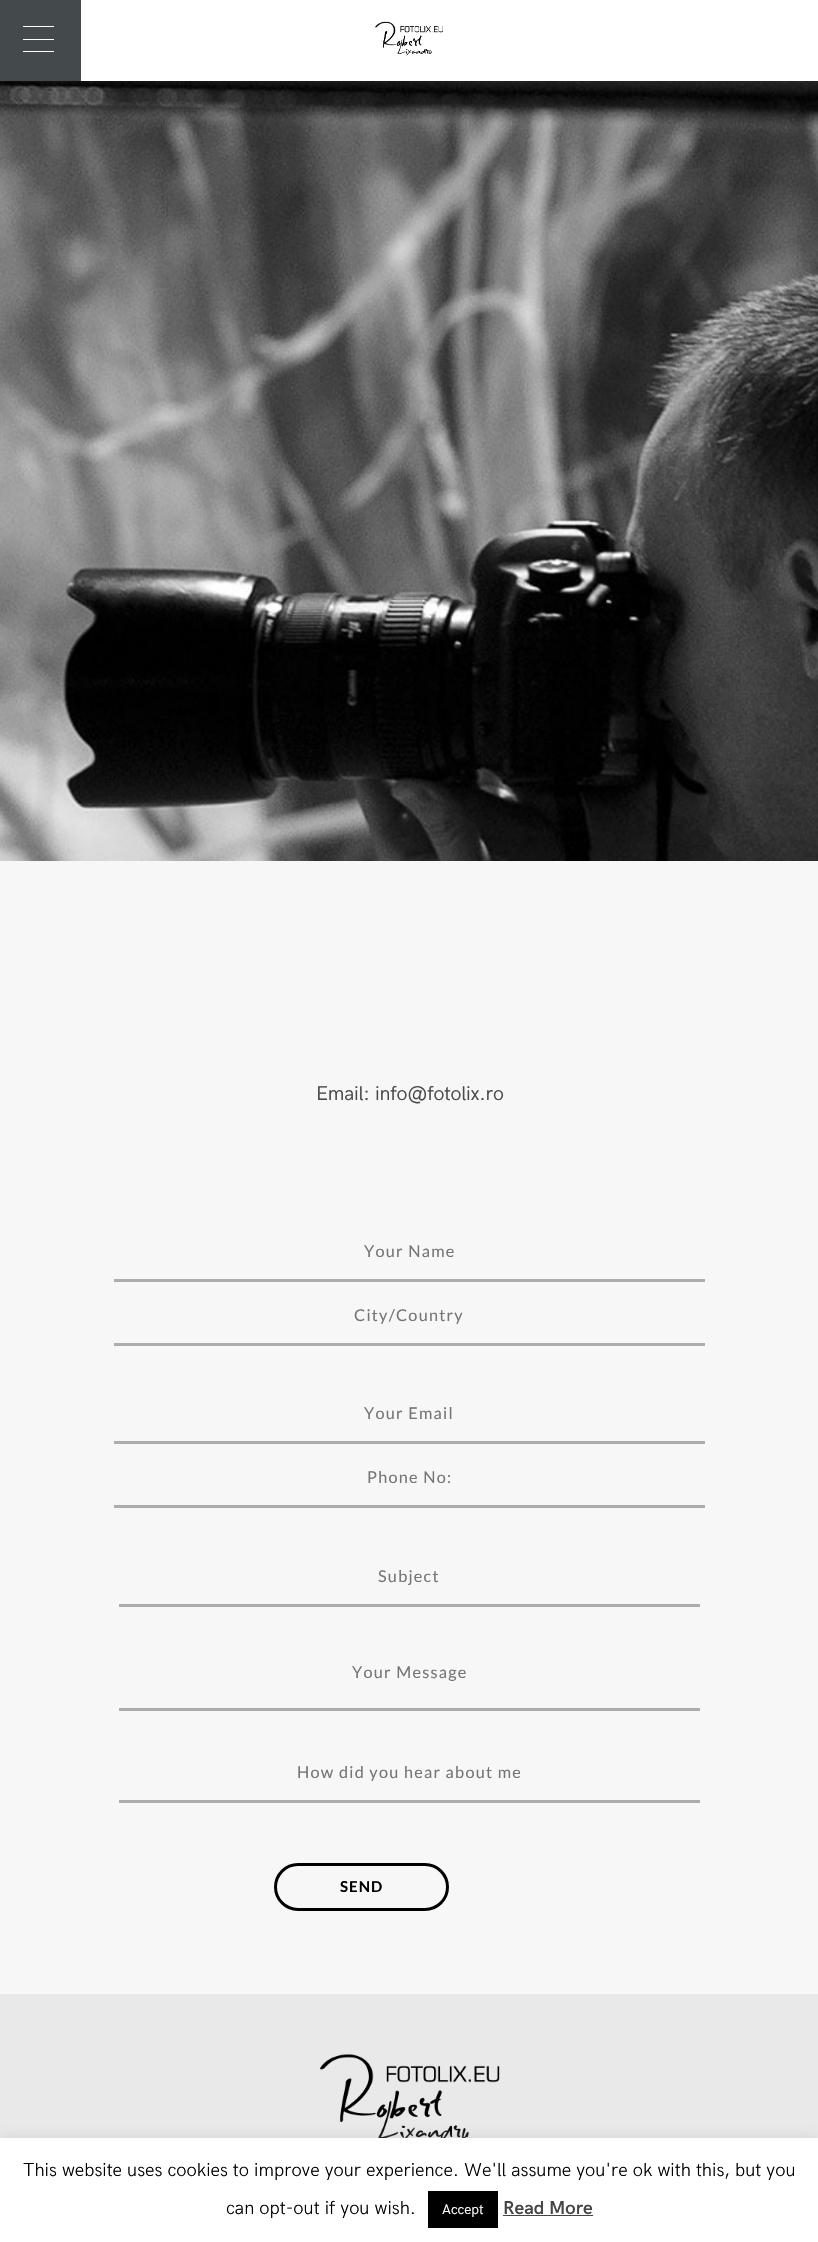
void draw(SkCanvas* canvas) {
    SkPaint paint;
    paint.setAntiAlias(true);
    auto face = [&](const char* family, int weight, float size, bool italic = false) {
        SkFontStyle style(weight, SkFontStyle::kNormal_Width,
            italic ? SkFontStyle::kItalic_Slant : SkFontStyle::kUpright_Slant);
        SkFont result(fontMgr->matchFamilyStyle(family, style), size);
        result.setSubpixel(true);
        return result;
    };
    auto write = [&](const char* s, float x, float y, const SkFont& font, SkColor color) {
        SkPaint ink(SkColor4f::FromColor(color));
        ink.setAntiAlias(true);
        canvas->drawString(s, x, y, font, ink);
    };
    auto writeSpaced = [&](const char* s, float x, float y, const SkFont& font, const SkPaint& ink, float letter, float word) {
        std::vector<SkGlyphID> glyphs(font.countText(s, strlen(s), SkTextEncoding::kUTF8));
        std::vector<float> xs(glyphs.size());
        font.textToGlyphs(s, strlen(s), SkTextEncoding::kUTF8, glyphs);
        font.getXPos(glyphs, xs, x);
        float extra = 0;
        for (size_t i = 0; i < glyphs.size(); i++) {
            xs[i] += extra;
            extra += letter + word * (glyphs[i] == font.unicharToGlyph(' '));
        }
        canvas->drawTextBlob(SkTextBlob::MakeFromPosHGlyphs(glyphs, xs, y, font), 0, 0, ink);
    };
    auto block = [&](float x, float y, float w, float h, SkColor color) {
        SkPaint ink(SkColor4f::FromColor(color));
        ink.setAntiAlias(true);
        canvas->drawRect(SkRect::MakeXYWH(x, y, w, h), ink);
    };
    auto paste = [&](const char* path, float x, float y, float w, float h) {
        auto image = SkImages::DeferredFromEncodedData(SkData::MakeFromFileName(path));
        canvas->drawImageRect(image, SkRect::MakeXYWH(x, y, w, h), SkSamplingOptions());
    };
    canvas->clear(SkColorSetRGB(247, 247, 247));
    block(0, 0, 81, 81, SkColorSetRGB(68, 73, 75));
    block(23, 39, 31, 1, SK_ColorWHITE);
    block(23, 26, 31, 1, SK_ColorWHITE);
    block(23, 51, 31, 1, SK_ColorWHITE);
    block(81, 0, 737, 81, SK_ColorWHITE);
    paste("pic1.png", 375, 21, 68, 35);
    paste("pic2.png", 0, 81, 818, 780);
    auto kFont1 = face("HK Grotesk", 400, 20);
    paint.setColor(SkColorSetRGB(74, 74, 74));
    writeSpaced("Email:", 316, 1100, kFont1, paint, -0.25f, 0);
    writeSpaced("info@fotolix.ro", 375, 1100, kFont1, paint, -0.25f, 0);
    block(114, 1279, 591, 3, SkColorSetRGB(173, 173, 173));
    auto kFont2 = face("Lato", 400, 16.25f);
    paint.setColor(SkColorSetRGB(117, 117, 117));
    writeSpaced("Your Name", 364, 1257, kFont2, paint, 1.25f, 0);
    block(114, 1343, 591, 3, SkColorSetRGB(173, 173, 173));
    writeSpaced("City/Country", 354, 1321, kFont2, paint, 1.25f, 0);
    block(114, 1441, 591, 3, SkColorSetRGB(173, 173, 173));
    writeSpaced("Your Email", 364, 1419, kFont2, paint, 1.25f, 0);
    block(114, 1505, 591, 3, SkColorSetRGB(173, 173, 173));
    writeSpaced("Phone No:", 367, 1483, kFont2, paint, 1.25f, 0);
    block(119, 1604, 581, 3, SkColorSetRGB(173, 173, 173));
    writeSpaced("Subject", 378, 1582, kFont2, paint, 1.25f, 0);
    block(119, 1708, 581, 3, SkColorSetRGB(173, 173, 173));
    writeSpaced("Your Message", 352, 1678, kFont2, paint, 1.25f, 0);
    block(119, 1800, 581, 3, SkColorSetRGB(173, 173, 173));
    writeSpaced("How did you hear about me", 297, 1778, kFont2, paint, 1.25f, 0);
    paint.setStyle(SkPaint::kStroke_Style);
    paint.setStrokeWidth(3);
    paint.setColor(SK_ColorBLACK);
    canvas->drawRoundRect(SkRect::MakeXYWH(275.5f, 1864.5f, 172, 45), 22.5f, 22.5f, paint);
    auto kFont3 = face("Lato", 700, 15);
    paint.setStyle(SkPaint::kFill_Style);
    writeSpaced("SEND", 340, 1892, kFont3, paint, 1, 0);
    block(0, 1994, 818, 144, SkColorSetRGB(233, 233, 233));
    paste("pic3.png", 320, 2054, 180, 84);
    paint.setColor(SkColorSetARGB(77, 172, 171, 171));
    paint.setMaskFilter(SkMaskFilter::MakeBlur(kNormal_SkBlurStyle, 6));
    canvas->drawRect(SkRect::MakeXYWH(0, 2136, 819, 105), paint);
    paint.setMaskFilter(nullptr);
    block(0, 2138, 818, 104, SK_ColorWHITE);
    auto kFont4 = face("HK Grotesk", 300, 18.75f);
    write("This website uses cookies to improve your experience. We'll assume you're ok with this, but you", 23, 2176, kFont4, SK_ColorBLACK);
    write("can opt-out if you wish.", 226, 2214, kFont4, SK_ColorBLACK);
    block(428, 2191, 70, 37, SK_ColorBLACK);
    auto kFont5 = face("HK Grotesk", 400, 14);
    write("Accept", 442, 2214, kFont5, SK_ColorWHITE);
    auto kFont6 = face("HK Grotesk", 600, 18.75f);
    write("Read More", 503, 2214, kFont6, SkColorSetRGB(68, 68, 68));
    block(503, 2215, 90, 1, SkColorSetRGB(68, 68, 68));
}
